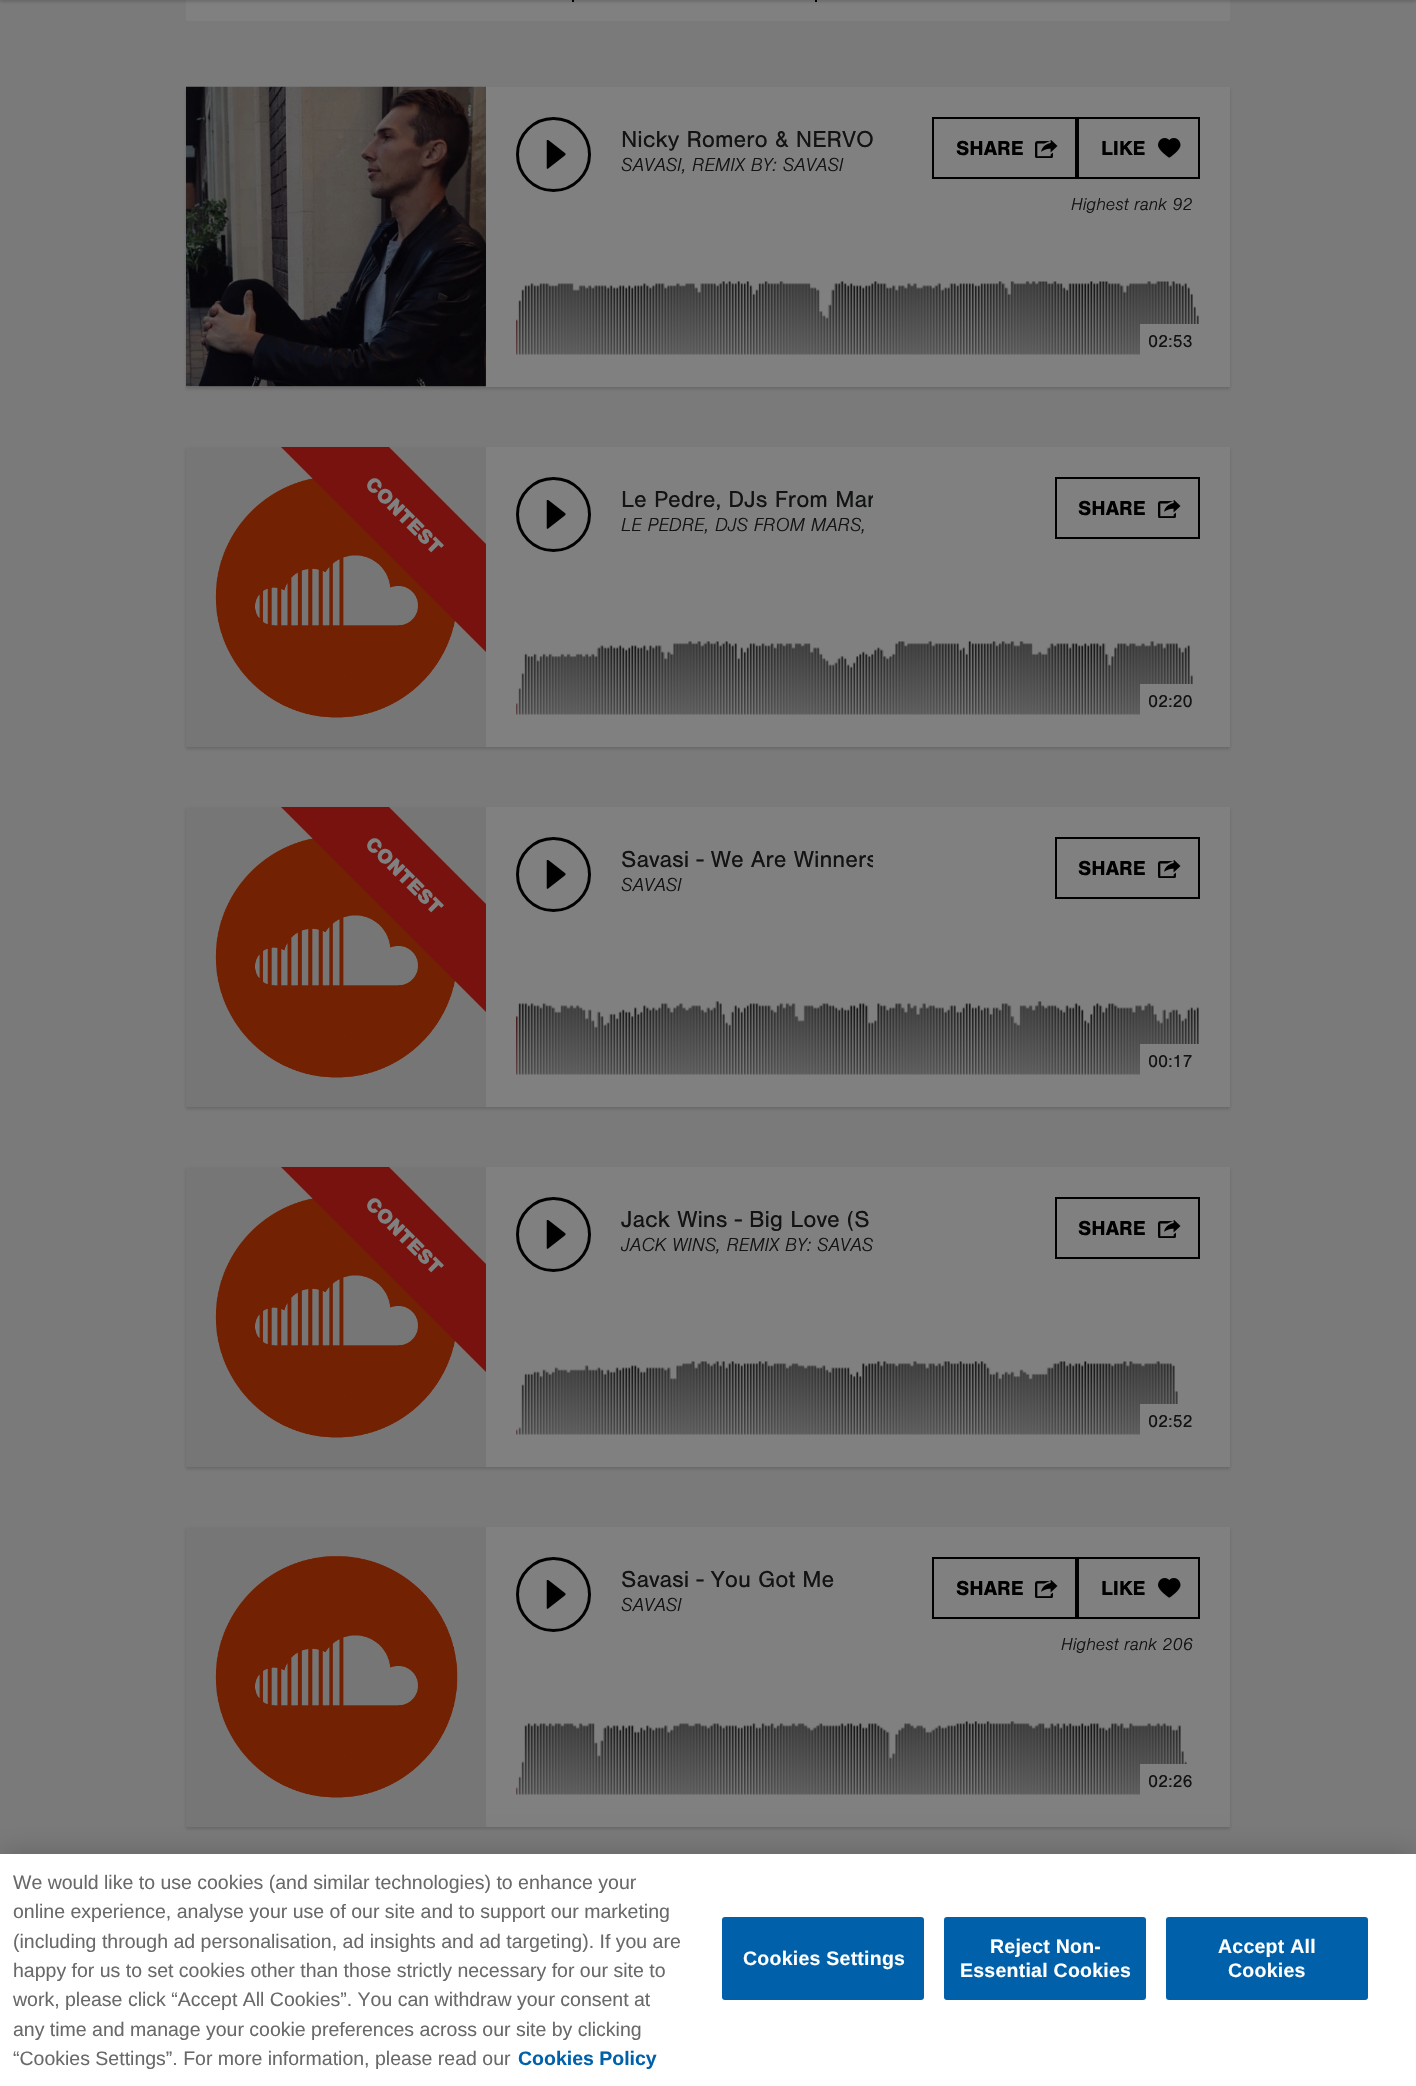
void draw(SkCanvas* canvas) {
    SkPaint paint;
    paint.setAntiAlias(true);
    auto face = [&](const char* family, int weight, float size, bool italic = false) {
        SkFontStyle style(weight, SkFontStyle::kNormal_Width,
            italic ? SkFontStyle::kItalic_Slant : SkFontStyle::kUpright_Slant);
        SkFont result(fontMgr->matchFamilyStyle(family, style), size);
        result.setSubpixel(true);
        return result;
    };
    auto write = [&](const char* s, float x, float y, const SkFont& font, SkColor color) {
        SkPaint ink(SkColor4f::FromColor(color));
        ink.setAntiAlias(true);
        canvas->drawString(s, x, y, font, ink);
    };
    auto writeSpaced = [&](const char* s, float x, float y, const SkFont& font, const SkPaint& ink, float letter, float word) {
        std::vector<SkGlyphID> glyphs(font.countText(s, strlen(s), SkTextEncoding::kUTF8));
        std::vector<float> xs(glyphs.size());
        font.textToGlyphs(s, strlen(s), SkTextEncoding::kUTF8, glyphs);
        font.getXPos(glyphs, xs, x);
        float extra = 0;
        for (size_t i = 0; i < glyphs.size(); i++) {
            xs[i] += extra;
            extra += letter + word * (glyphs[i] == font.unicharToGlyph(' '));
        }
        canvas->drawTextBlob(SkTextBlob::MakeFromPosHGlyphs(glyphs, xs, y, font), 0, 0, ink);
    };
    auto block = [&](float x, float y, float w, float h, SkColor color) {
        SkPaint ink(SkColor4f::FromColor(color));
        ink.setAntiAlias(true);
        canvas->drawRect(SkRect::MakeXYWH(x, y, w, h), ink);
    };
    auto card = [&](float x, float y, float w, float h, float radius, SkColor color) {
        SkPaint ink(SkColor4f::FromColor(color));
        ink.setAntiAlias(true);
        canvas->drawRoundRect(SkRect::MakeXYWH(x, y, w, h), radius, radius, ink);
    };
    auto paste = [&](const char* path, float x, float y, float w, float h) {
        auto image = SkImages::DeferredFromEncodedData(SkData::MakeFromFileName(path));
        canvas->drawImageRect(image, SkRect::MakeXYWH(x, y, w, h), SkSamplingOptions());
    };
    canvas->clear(SkColorSetRGB(122, 122, 122));
    block(186, 0, 1044, 21, SkColorSetRGB(128, 128, 128));
    block(572, 0, 2, 2, SK_ColorBLACK);
    block(815, 0, 2, 2, SK_ColorBLACK);
    paint.setColor(SkColorSetARGB(38, 0, 0, 0));
    paint.setMaskFilter(SkMaskFilter::MakeBlur(kNormal_SkBlurStyle, 1.5f));
    canvas->drawRect(SkRect::MakeXYWH(0, -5, 1416, 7), paint);
    paint.setMaskFilter(nullptr);
    paint.setMaskFilter(SkMaskFilter::MakeBlur(kNormal_SkBlurStyle, 1.5f));
    canvas->drawRect(SkRect::MakeXYWH(186, 89, 1044, 300), paint);
    paint.setMaskFilter(nullptr);
    block(486, 87, 744, 300, SkColorSetRGB(128, 128, 128));
    block(186, 386, 300, 1, SkColorSetRGB(118, 118, 118));
    paste("pic1.png", 186, 86, 300, 301);
    paint.setStyle(SkPaint::kStroke_Style);
    paint.setStrokeWidth(3);
    paint.setColor(SK_ColorBLACK);
    canvas->drawCircle(553.5f, 154.5f, 36, paint);
    paste("pic2.png", 546, 140, 20, 29);
    auto kFont1 = face("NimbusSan", 400, 24);
    write("Nicky Romero & NERVO", 621, 147, kFont1, SkColorSetRGB(17, 19, 21));
    auto kFont2 = face("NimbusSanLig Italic", 400, 19.5f, true);
    write("SAVASI, REMIX BY: SAVASI", 621, 171, kFont2, SkColorSetRGB(17, 19, 21));
    paint.setStrokeWidth(2);
    canvas->drawRect(SkRect::MakeXYWH(933, 118, 143, 60), paint);
    auto kFont3 = face("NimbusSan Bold", 700, 21);
    write("SHARE", 956, 155, kFont3, SK_ColorBLACK);
    paste("pic3.png", 1035, 140, 23, 18);
    canvas->drawRect(SkRect::MakeXYWH(1078, 118, 121, 60), paint);
    write("LIKE", 1101, 155, kFont3, SK_ColorBLACK);
    paste("pic4.png", 1158, 138, 23, 20);
    auto kFont4 = face("NimbusSanLig Italic", 400, 18, true);
    write("Highest rank 92", 1071, 210, kFont4, SkColorSetRGB(17, 19, 21));
    paste("pic5.png", 516, 281, 683, 74);
    block(1140, 324, 59, 31, SkColorSetRGB(128, 128, 128));
    auto kFont5 = face("NimbusSan", 400, 18);
    write("02:53", 1148, 347, kFont5, SkColorSetRGB(17, 19, 21));
    paint.setStyle(SkPaint::kFill_Style);
    paint.setColor(SkColorSetARGB(38, 0, 0, 0));
    paint.setMaskFilter(SkMaskFilter::MakeBlur(kNormal_SkBlurStyle, 1.5f));
    canvas->drawRect(SkRect::MakeXYWH(186, 449, 1044, 300), paint);
    paint.setMaskFilter(nullptr);
    block(486, 447, 744, 300, SkColorSetRGB(128, 128, 128));
    block(186, 448, 300, 299, SkColorSetRGB(118, 118, 118));
    paste("pic6.png", 215, 478, 240, 240);
    canvas->save();
    canvas->clipRect(SkRect::MakeXYWH(186, 447, 300, 225));
    paint.setColor(SkColorSetRGB(120, 18, 14));
    canvas->drawPath(SkPathBuilder().moveTo(298, 356).lineTo(563, 621).lineTo(509, 675).lineTo(244, 410).close().detach(), paint);
    canvas->restore();
    auto kFont6 = face("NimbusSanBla", 400, 21);
    canvas->save();
    canvas->rotate(45, 364, 485);
    write("CONTEST", 364, 485, kFont6, SkColorSetRGB(128, 128, 128));
    canvas->restore();
    paint.setStyle(SkPaint::kStroke_Style);
    paint.setStrokeWidth(3);
    paint.setColor(SK_ColorBLACK);
    canvas->drawCircle(553.5f, 514.5f, 36, paint);
    paste("pic2.png", 546, 500, 20, 29);
    canvas->save();
    canvas->clipRect(SkRect::MakeXYWH(621, 477, 252, 60));
    write("Le Pedre, DJs From Mar", 621, 507, kFont1, SkColorSetRGB(17, 19, 21));
    canvas->restore();
    write("LE PEDRE, DJS FROM MARS,", 621, 531, kFont2, SkColorSetRGB(17, 19, 21));
    paint.setStrokeWidth(2);
    canvas->drawRect(SkRect::MakeXYWH(1056, 478, 143, 60), paint);
    write("SHARE", 1078, 515, kFont3, SK_ColorBLACK);
    paste("pic3.png", 1158, 500, 23, 18);
    paste("pic7.png", 516, 641, 677, 74);
    block(1140, 684, 53, 31, SkColorSetRGB(128, 128, 128));
    write("02:20", 1148, 707, kFont5, SkColorSetRGB(17, 19, 21));
    paint.setStyle(SkPaint::kFill_Style);
    paint.setColor(SkColorSetARGB(38, 0, 0, 0));
    paint.setMaskFilter(SkMaskFilter::MakeBlur(kNormal_SkBlurStyle, 1.5f));
    canvas->drawRect(SkRect::MakeXYWH(186, 809, 1044, 300), paint);
    paint.setMaskFilter(nullptr);
    block(486, 807, 744, 300, SkColorSetRGB(128, 128, 128));
    block(186, 808, 300, 299, SkColorSetRGB(118, 118, 118));
    paste("pic6.png", 215, 838, 240, 240);
    canvas->save();
    canvas->clipRect(SkRect::MakeXYWH(186, 807, 300, 225));
    paint.setColor(SkColorSetRGB(120, 18, 14));
    canvas->drawPath(SkPathBuilder().moveTo(298, 716).lineTo(563, 981).lineTo(509, 1035).lineTo(244, 770).close().detach(), paint);
    canvas->restore();
    canvas->save();
    canvas->rotate(45, 364, 845);
    write("CONTEST", 364, 845, kFont6, SkColorSetRGB(128, 128, 128));
    canvas->restore();
    paint.setStyle(SkPaint::kStroke_Style);
    paint.setStrokeWidth(3);
    paint.setColor(SK_ColorBLACK);
    canvas->drawCircle(553.5f, 874.5f, 36, paint);
    paste("pic2.png", 546, 860, 20, 29);
    canvas->save();
    canvas->clipRect(SkRect::MakeXYWH(621, 837, 252, 60));
    write("Savasi - We Are Winners", 621, 867, kFont1, SkColorSetRGB(17, 19, 21));
    canvas->restore();
    write("SAVASI", 621, 891, kFont2, SkColorSetRGB(17, 19, 21));
    paint.setStrokeWidth(2);
    canvas->drawRect(SkRect::MakeXYWH(1056, 838, 143, 60), paint);
    write("SHARE", 1078, 875, kFont3, SK_ColorBLACK);
    paste("pic3.png", 1158, 860, 23, 18);
    paste("pic8.png", 516, 1001, 683, 74);
    block(1140, 1044, 59, 31, SkColorSetRGB(128, 128, 128));
    write("00:17", 1148, 1067, kFont5, SkColorSetRGB(17, 19, 21));
    paint.setStyle(SkPaint::kFill_Style);
    paint.setColor(SkColorSetARGB(38, 0, 0, 0));
    paint.setMaskFilter(SkMaskFilter::MakeBlur(kNormal_SkBlurStyle, 1.5f));
    canvas->drawRect(SkRect::MakeXYWH(186, 1169, 1044, 300), paint);
    paint.setMaskFilter(nullptr);
    block(486, 1167, 744, 300, SkColorSetRGB(128, 128, 128));
    block(186, 1168, 300, 299, SkColorSetRGB(118, 118, 118));
    paste("pic6.png", 215, 1198, 240, 240);
    canvas->save();
    canvas->clipRect(SkRect::MakeXYWH(186, 1167, 300, 225));
    paint.setColor(SkColorSetRGB(120, 18, 14));
    canvas->drawPath(SkPathBuilder().moveTo(298, 1076).lineTo(563, 1341).lineTo(509, 1395).lineTo(244, 1130).close().detach(), paint);
    canvas->restore();
    canvas->save();
    canvas->rotate(45, 364, 1205);
    write("CONTEST", 364, 1205, kFont6, SkColorSetRGB(128, 128, 128));
    canvas->restore();
    paint.setStyle(SkPaint::kStroke_Style);
    paint.setStrokeWidth(3);
    paint.setColor(SK_ColorBLACK);
    canvas->drawCircle(553.5f, 1234.5f, 36, paint);
    paste("pic2.png", 546, 1220, 20, 29);
    write("Jack Wins - Big Love (S", 621, 1227, kFont1, SkColorSetRGB(17, 19, 21));
    write("JACK WINS, REMIX BY: SAVAS", 621, 1251, kFont2, SkColorSetRGB(17, 19, 21));
    paint.setStrokeWidth(2);
    canvas->drawRect(SkRect::MakeXYWH(1056, 1198, 143, 60), paint);
    write("SHARE", 1078, 1235, kFont3, SK_ColorBLACK);
    paste("pic3.png", 1158, 1220, 23, 18);
    paste("pic9.png", 516, 1361, 662, 74);
    block(1140, 1404, 38, 31, SkColorSetRGB(128, 128, 128));
    write("02:52", 1148, 1427, kFont5, SkColorSetRGB(17, 19, 21));
    paint.setStyle(SkPaint::kFill_Style);
    paint.setColor(SkColorSetARGB(38, 0, 0, 0));
    paint.setMaskFilter(SkMaskFilter::MakeBlur(kNormal_SkBlurStyle, 1.5f));
    canvas->drawRect(SkRect::MakeXYWH(186, 1529, 1044, 300), paint);
    paint.setMaskFilter(nullptr);
    block(486, 1527, 744, 300, SkColorSetRGB(128, 128, 128));
    block(186, 1528, 300, 299, SkColorSetRGB(118, 118, 118));
    paste("pic10.png", 215, 1556, 243, 242);
    paint.setStyle(SkPaint::kStroke_Style);
    paint.setStrokeWidth(3);
    paint.setColor(SK_ColorBLACK);
    canvas->drawCircle(553.5f, 1594.5f, 36, paint);
    paste("pic2.png", 546, 1580, 20, 29);
    write("Savasi - You Got Me", 621, 1587, kFont1, SkColorSetRGB(17, 19, 21));
    write("SAVASI", 621, 1611, kFont2, SkColorSetRGB(17, 19, 21));
    paint.setStrokeWidth(2);
    canvas->drawRect(SkRect::MakeXYWH(933, 1558, 143, 60), paint);
    write("SHARE", 956, 1595, kFont3, SK_ColorBLACK);
    paste("pic3.png", 1035, 1580, 23, 18);
    canvas->drawRect(SkRect::MakeXYWH(1078, 1558, 121, 60), paint);
    write("LIKE", 1101, 1595, kFont3, SK_ColorBLACK);
    paste("pic4.png", 1158, 1578, 23, 20);
    write("Highest rank 206", 1061, 1650, kFont4, SkColorSetRGB(17, 19, 21));
    paste("pic11.png", 516, 1721, 671, 74);
    block(1140, 1764, 47, 31, SkColorSetRGB(128, 128, 128));
    write("02:26", 1148, 1787, kFont5, SkColorSetRGB(17, 19, 21));
    paint.setStyle(SkPaint::kFill_Style);
    paint.setColor(SkColorSetARGB(51, 0, 0, 0));
    paint.setMaskFilter(SkMaskFilter::MakeBlur(kNormal_SkBlurStyle, 13.5f));
    canvas->drawRect(SkRect::MakeXYWH(0, 1854, 1416, 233), paint);
    paint.setMaskFilter(nullptr);
    block(0, 1854, 1416, 232, SK_ColorWHITE);
    auto kFont7 = face("Liberation Sans", 400, 19.5f);
    write("We would like to use cookies (and similar technologies) to enhance your", 13, 1889, kFont7, SkColorSetRGB(105, 105, 105));
    write("online experience, analyse your use of our site and to support our marketing", 13, 1918, kFont7, SkColorSetRGB(105, 105, 105));
    write("(including through ad personalisation, ad insights and ad targeting). If you are", 13, 1948, kFont7, SkColorSetRGB(105, 105, 105));
    write("happy for us to set cookies other than those strictly necessary for our site to", 13, 1977, kFont7, SkColorSetRGB(105, 105, 105));
    write("work, please click “Accept All Cookies”. You can withdraw your consent at", 13, 2006, kFont7, SkColorSetRGB(105, 105, 105));
    write("any time and manage your cookie preferences across our site by clicking", 13, 2036, kFont7, SkColorSetRGB(105, 105, 105));
    write("“Cookies Settings”. For more information, please read our", 13, 2065, kFont7, SkColorSetRGB(105, 105, 105));
    auto kFont8 = face("Liberation Sans", 700, 19.5f);
    write("Cookies Policy", 518, 2065, kFont8, SkColorSetRGB(0, 97, 170));
    card(722, 1917, 202, 83, 3, SkColorSetRGB(0, 97, 170));
    paint.setColor(SK_ColorWHITE);
    writeSpaced("Cookies Settings", 743, 1965, kFont8, paint, 0.25f, 0);
    card(944, 1917, 202, 83, 3, SkColorSetRGB(0, 97, 170));
    writeSpaced("Reject Non-", 990, 1953, kFont8, paint, 0.25f, 0);
    writeSpaced("Essential Cookies", 960, 1977, kFont8, paint, 0.25f, 0);
    card(1166, 1917, 202, 83, 3, SkColorSetRGB(0, 97, 170));
    writeSpaced("Accept All", 1218, 1953, kFont8, paint, 0.25f, 0);
    writeSpaced("Cookies", 1228, 1977, kFont8, paint, 0.25f, 0);
}
